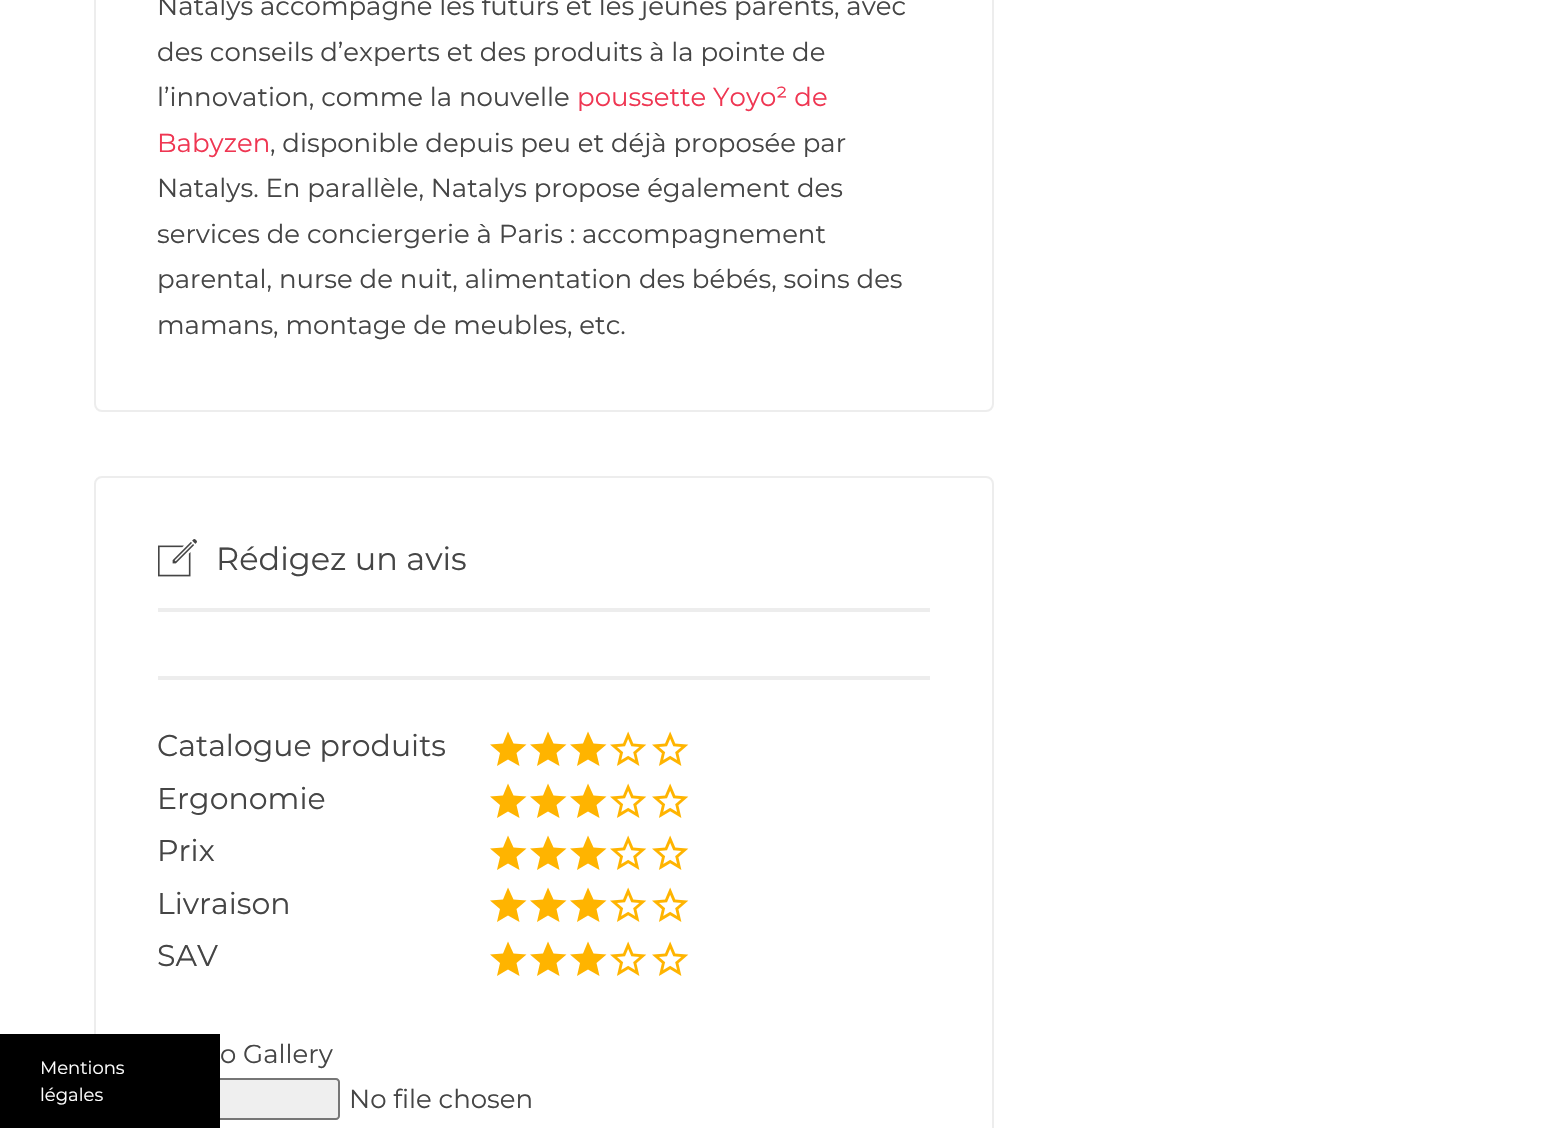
void draw(SkCanvas* canvas) {
    SkPaint paint;
    paint.setAntiAlias(true);
    auto face = [&](const char* family, int weight, float size, bool italic = false) {
        SkFontStyle style(weight, SkFontStyle::kNormal_Width,
            italic ? SkFontStyle::kItalic_Slant : SkFontStyle::kUpright_Slant);
        SkFont result(fontMgr->matchFamilyStyle(family, style), size);
        result.setSubpixel(true);
        return result;
    };
    auto write = [&](const char* s, float x, float y, const SkFont& font, SkColor color) {
        SkPaint ink(SkColor4f::FromColor(color));
        ink.setAntiAlias(true);
        canvas->drawString(s, x, y, font, ink);
    };
    auto block = [&](float x, float y, float w, float h, SkColor color) {
        SkPaint ink(SkColor4f::FromColor(color));
        ink.setAntiAlias(true);
        canvas->drawRect(SkRect::MakeXYWH(x, y, w, h), ink);
    };
    auto paste = [&](const char* path, float x, float y, float w, float h) {
        auto image = SkImages::DeferredFromEncodedData(SkData::MakeFromFileName(path));
        canvas->drawImageRect(image, SkRect::MakeXYWH(x, y, w, h), SkSamplingOptions());
    };
    canvas->clear(SK_ColorWHITE);
    paint.setStyle(SkPaint::kStroke_Style);
    paint.setStrokeWidth(2);
    paint.setColor(SkColorSetRGB(237, 237, 237));
    canvas->drawRoundRect(SkRect::MakeXYWH(95, 477, 898, 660), 7, 7, paint);
    paint.setStyle(SkPaint::kFill_Style);
    paint.setColor(SkColorSetRGB(239, 239, 239));
    canvas->drawPath(SkPathBuilder().moveTo(166, 1078).lineTo(336, 1078).cubicTo(338, 1078, 340, 1080, 340, 1082).lineTo(340, 1116).cubicTo(340, 1118, 338, 1120, 336, 1120).lineTo(166, 1120).cubicTo(161.5f, 1120, 158, 1116.5f, 158, 1112).lineTo(158, 1086).cubicTo(158, 1081.5f, 161.5f, 1078, 166, 1078).close().detach(), paint);
    paint.setColor(SkColorSetRGB(118, 118, 118));
    canvas->drawPath(SkPathBuilder(SkPathFillType::kEvenOdd).moveTo(166, 1078).cubicTo(162, 1078, 158, 1082, 158, 1086).lineTo(158, 1112).cubicTo(158, 1116, 162, 1120, 166, 1120).lineTo(336, 1120).cubicTo(338, 1120, 340, 1118, 340, 1116).lineTo(340, 1082).cubicTo(340, 1080, 338, 1078, 336, 1078).close().moveTo(162, 1080).cubicTo(161, 1080, 160, 1081, 160, 1082).lineTo(160, 1116).cubicTo(160, 1117, 161, 1118, 162, 1118).lineTo(336, 1118).cubicTo(337, 1118, 338, 1117, 338, 1116).lineTo(338, 1082).cubicTo(338, 1081, 337, 1080, 336, 1080).close().detach(), paint);
    block(0, 1034, 220, 94, SK_ColorBLACK);
    auto kFont1 = face("Montserrat", 400, 18);
    write("Mentions", 40, 1074, kFont1, SK_ColorWHITE);
    write("légales", 40, 1101, kFont1, SK_ColorWHITE);
    paint.setStyle(SkPaint::kStroke_Style);
    paint.setColor(SkColorSetRGB(237, 237, 237));
    canvas->drawRoundRect(SkRect::MakeXYWH(95, -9, 898, 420), 7, 7, paint);
    auto kFont2 = face("Montserrat", 400, 26);
    write("Natalys accompagne les futurs et les jeunes parents, avec", 157, 15, kFont2, SkColorSetRGB(69, 69, 69));
    write("des conseils d’experts et des produits à la pointe de", 157, 61, kFont2, SkColorSetRGB(69, 69, 69));
    write("l’innovation, comme la nouvelle", 157, 106, kFont2, SkColorSetRGB(69, 69, 69));
    write("poussette Yoyo² de", 577, 106, kFont2, SkColorSetRGB(239, 54, 82));
    write("Babyzen", 157, 152, kFont2, SkColorSetRGB(239, 54, 82));
    write(", disponible depuis peu et déjà proposée par", 270, 152, kFont2, SkColorSetRGB(69, 69, 69));
    write("Natalys. En parallèle, Natalys propose également des", 157, 197, kFont2, SkColorSetRGB(69, 69, 69));
    write("services de conciergerie à Paris : accompagnement", 157, 243, kFont2, SkColorSetRGB(69, 69, 69));
    write("parental, nurse de nuit, alimentation des bébés, soins des", 157, 288, kFont2, SkColorSetRGB(69, 69, 69));
    write("mamans, montage de meubles, etc.", 157, 334, kFont2, SkColorSetRGB(69, 69, 69));
    block(158, 608, 772, 4, SkColorSetRGB(237, 237, 237));
    paste("pic1.png", 158, 539, 39, 38);
    auto kFont3 = face("Montserrat", 400, 32);
    write("Rédigez un avis", 216, 570, kFont3, SkColorSetRGB(69, 69, 69));
    block(158, 676, 772, 4, SkColorSetRGB(237, 237, 237));
    auto kFont4 = face("Montserrat", 400, 30);
    write("Catalogue produits", 157, 756, kFont4, SkColorSetRGB(69, 69, 69));
    paint.setStyle(SkPaint::kFill_Style);
    paint.setColor(SkColorSetRGB(255, 180, 0));
    canvas->drawPath(SkPathBuilder().moveTo(508, 759.5f).lineTo(497, 766).lineTo(500, 753).lineTo(490, 744.5f).lineTo(503, 743.5f).lineTo(508, 731.5f).lineTo(513.5f, 743.5f).lineTo(526.5f, 744.5f).lineTo(516.5f, 753).lineTo(519.5f, 766).close().detach(), paint);
    canvas->drawPath(SkPathBuilder().moveTo(548, 759.5f).lineTo(537, 766).lineTo(540, 753).lineTo(530, 744.5f).lineTo(543, 743.5f).lineTo(548, 731.5f).lineTo(553.5f, 743.5f).lineTo(566.5f, 744.5f).lineTo(556.5f, 753).lineTo(559.5f, 766).close().detach(), paint);
    canvas->drawPath(SkPathBuilder().moveTo(588, 759.5f).lineTo(577, 766).lineTo(580, 753).lineTo(570, 744.5f).lineTo(583, 743.5f).lineTo(588, 731.5f).lineTo(593.5f, 743.5f).lineTo(606.5f, 744.5f).lineTo(596.5f, 753).lineTo(599.5f, 766).close().detach(), paint);
    paste("pic2.png", 610, 731, 37, 35);
    paste("pic2.png", 652, 731, 37, 35);
    write("Ergonomie", 157, 809, kFont4, SkColorSetRGB(69, 69, 69));
    canvas->drawPath(SkPathBuilder().moveTo(508, 811.5f).lineTo(497, 818).lineTo(500, 805).lineTo(490, 796.5f).lineTo(503, 795.5f).lineTo(508, 783.5f).lineTo(513.5f, 795.5f).lineTo(526.5f, 796.5f).lineTo(516.5f, 805).lineTo(519.5f, 818).close().detach(), paint);
    canvas->drawPath(SkPathBuilder().moveTo(548, 811.5f).lineTo(537, 818).lineTo(540, 805).lineTo(530, 796.5f).lineTo(543, 795.5f).lineTo(548, 783.5f).lineTo(553.5f, 795.5f).lineTo(566.5f, 796.5f).lineTo(556.5f, 805).lineTo(559.5f, 818).close().detach(), paint);
    canvas->drawPath(SkPathBuilder().moveTo(588, 811.5f).lineTo(577, 818).lineTo(580, 805).lineTo(570, 796.5f).lineTo(583, 795.5f).lineTo(588, 783.5f).lineTo(593.5f, 795.5f).lineTo(606.5f, 796.5f).lineTo(596.5f, 805).lineTo(599.5f, 818).close().detach(), paint);
    paste("pic2.png", 610, 783, 37, 35);
    paste("pic2.png", 652, 783, 37, 35);
    write("Prix", 157, 861, kFont4, SkColorSetRGB(69, 69, 69));
    canvas->drawPath(SkPathBuilder().moveTo(508, 863.5f).lineTo(497, 870).lineTo(500, 857).lineTo(490, 848.5f).lineTo(503, 847.5f).lineTo(508, 835.5f).lineTo(513.5f, 847.5f).lineTo(526.5f, 848.5f).lineTo(516.5f, 857).lineTo(519.5f, 870).close().detach(), paint);
    canvas->drawPath(SkPathBuilder().moveTo(548, 863.5f).lineTo(537, 870).lineTo(540, 857).lineTo(530, 848.5f).lineTo(543, 847.5f).lineTo(548, 835.5f).lineTo(553.5f, 847.5f).lineTo(566.5f, 848.5f).lineTo(556.5f, 857).lineTo(559.5f, 870).close().detach(), paint);
    canvas->drawPath(SkPathBuilder().moveTo(588, 863.5f).lineTo(577, 870).lineTo(580, 857).lineTo(570, 848.5f).lineTo(583, 847.5f).lineTo(588, 835.5f).lineTo(593.5f, 847.5f).lineTo(606.5f, 848.5f).lineTo(596.5f, 857).lineTo(599.5f, 870).close().detach(), paint);
    paste("pic2.png", 610, 835, 37, 35);
    paste("pic2.png", 652, 835, 37, 35);
    write("Livraison", 157, 914, kFont4, SkColorSetRGB(69, 69, 69));
    canvas->drawPath(SkPathBuilder().moveTo(508, 915.5f).lineTo(497, 922).lineTo(500, 909).lineTo(490, 900.5f).lineTo(503, 899.5f).lineTo(508, 887.5f).lineTo(513.5f, 899.5f).lineTo(526.5f, 900.5f).lineTo(516.5f, 909).lineTo(519.5f, 922).close().detach(), paint);
    canvas->drawPath(SkPathBuilder().moveTo(548, 915.5f).lineTo(537, 922).lineTo(540, 909).lineTo(530, 900.5f).lineTo(543, 899.5f).lineTo(548, 887.5f).lineTo(553.5f, 899.5f).lineTo(566.5f, 900.5f).lineTo(556.5f, 909).lineTo(559.5f, 922).close().detach(), paint);
    canvas->drawPath(SkPathBuilder().moveTo(588, 915.5f).lineTo(577, 922).lineTo(580, 909).lineTo(570, 900.5f).lineTo(583, 899.5f).lineTo(588, 887.5f).lineTo(593.5f, 899.5f).lineTo(606.5f, 900.5f).lineTo(596.5f, 909).lineTo(599.5f, 922).close().detach(), paint);
    paste("pic2.png", 610, 887, 37, 35);
    paste("pic2.png", 652, 887, 37, 35);
    write("SAV", 157, 966, kFont4, SkColorSetRGB(69, 69, 69));
    canvas->drawPath(SkPathBuilder().moveTo(508, 969.5f).lineTo(497, 976).lineTo(500, 963).lineTo(490, 954.5f).lineTo(503, 953.5f).lineTo(508, 941.5f).lineTo(513.5f, 953.5f).lineTo(526.5f, 954.5f).lineTo(516.5f, 963).lineTo(519.5f, 976).close().detach(), paint);
    canvas->drawPath(SkPathBuilder().moveTo(548, 969.5f).lineTo(537, 976).lineTo(540, 963).lineTo(530, 954.5f).lineTo(543, 953.5f).lineTo(548, 941.5f).lineTo(553.5f, 953.5f).lineTo(566.5f, 954.5f).lineTo(556.5f, 963).lineTo(559.5f, 976).close().detach(), paint);
    canvas->drawPath(SkPathBuilder().moveTo(588, 969.5f).lineTo(577, 976).lineTo(580, 963).lineTo(570, 954.5f).lineTo(583, 953.5f).lineTo(588, 941.5f).lineTo(593.5f, 953.5f).lineTo(606.5f, 954.5f).lineTo(596.5f, 963).lineTo(599.5f, 976).close().detach(), paint);
    paste("pic2.png", 610, 941, 37, 35);
    paste("pic2.png", 652, 941, 37, 35);
    write("o Gallery", 220, 1063, kFont2, SkColorSetRGB(69, 69, 69));
    write("No file chosen", 349, 1108, kFont2, SkColorSetRGB(69, 69, 69));
}
